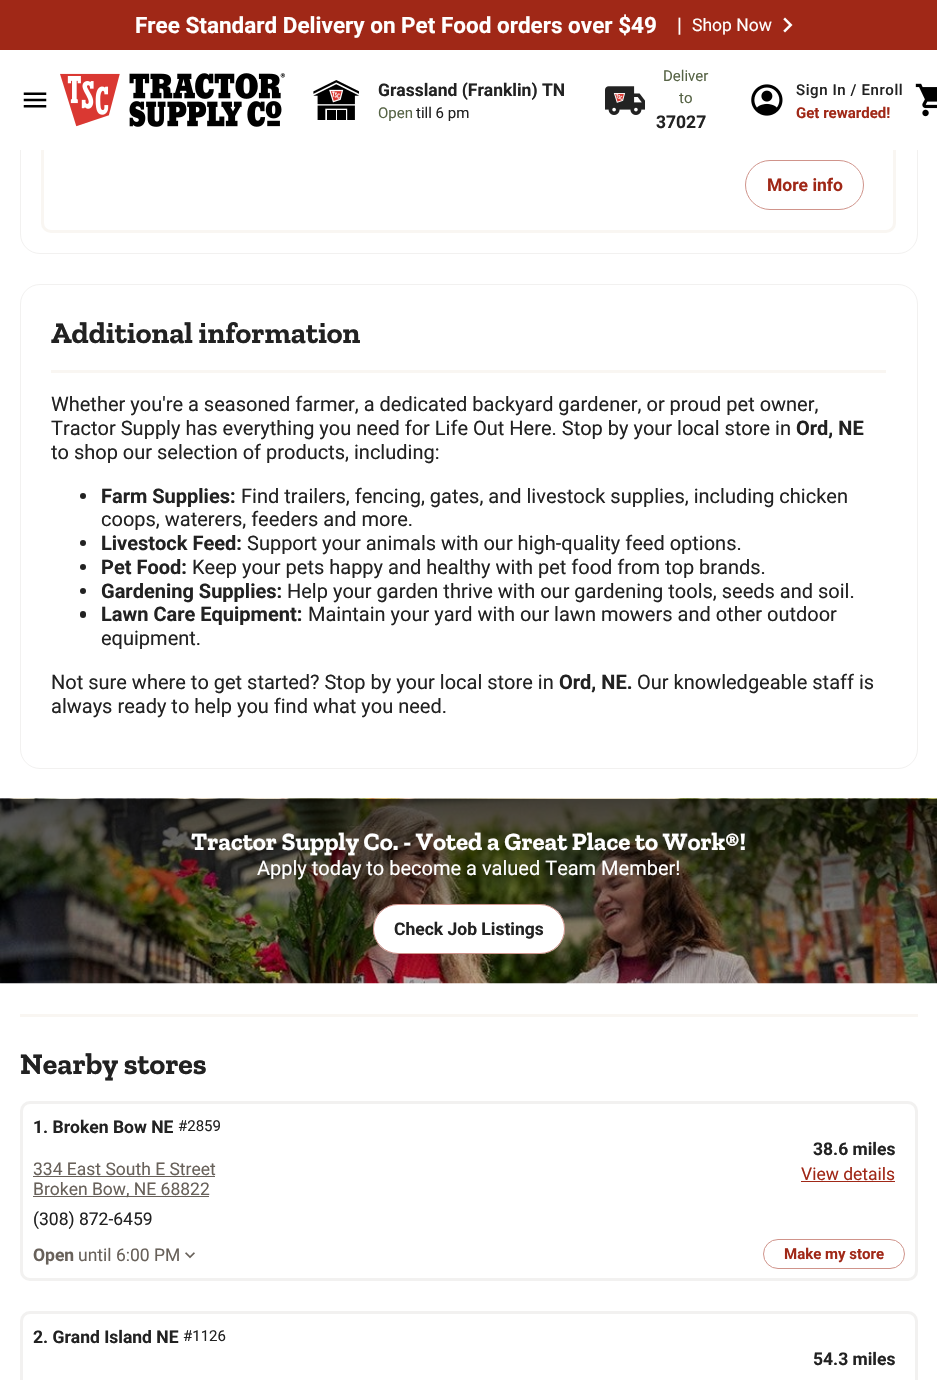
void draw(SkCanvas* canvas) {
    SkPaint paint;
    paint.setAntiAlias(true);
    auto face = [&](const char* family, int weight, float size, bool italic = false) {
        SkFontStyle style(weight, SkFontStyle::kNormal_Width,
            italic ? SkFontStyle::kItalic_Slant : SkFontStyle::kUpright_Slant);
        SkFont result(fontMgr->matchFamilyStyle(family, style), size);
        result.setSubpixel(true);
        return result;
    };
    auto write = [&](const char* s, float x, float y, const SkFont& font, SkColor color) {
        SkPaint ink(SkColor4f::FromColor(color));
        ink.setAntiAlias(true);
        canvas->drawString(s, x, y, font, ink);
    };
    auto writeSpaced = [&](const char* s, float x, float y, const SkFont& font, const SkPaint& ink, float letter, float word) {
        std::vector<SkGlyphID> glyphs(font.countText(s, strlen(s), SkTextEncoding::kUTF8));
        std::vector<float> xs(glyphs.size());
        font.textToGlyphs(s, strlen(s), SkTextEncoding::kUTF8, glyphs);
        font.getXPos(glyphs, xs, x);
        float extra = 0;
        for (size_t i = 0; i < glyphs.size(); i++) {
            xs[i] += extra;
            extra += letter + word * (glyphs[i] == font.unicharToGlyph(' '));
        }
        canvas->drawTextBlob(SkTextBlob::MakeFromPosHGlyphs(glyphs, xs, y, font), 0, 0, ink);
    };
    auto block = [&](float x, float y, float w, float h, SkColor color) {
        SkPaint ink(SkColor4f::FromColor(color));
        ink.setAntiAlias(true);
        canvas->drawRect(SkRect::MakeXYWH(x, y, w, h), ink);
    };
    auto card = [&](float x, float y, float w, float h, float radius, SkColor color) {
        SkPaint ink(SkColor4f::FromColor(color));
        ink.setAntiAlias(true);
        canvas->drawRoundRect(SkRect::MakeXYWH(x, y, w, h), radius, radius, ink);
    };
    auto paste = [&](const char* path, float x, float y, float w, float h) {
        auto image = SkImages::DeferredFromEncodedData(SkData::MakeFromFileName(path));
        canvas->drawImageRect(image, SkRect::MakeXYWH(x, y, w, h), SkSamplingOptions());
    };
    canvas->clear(SK_ColorWHITE);
    paint.setStyle(SkPaint::kStroke_Style);
    paint.setStrokeWidth(1);
    paint.setColor(SkColorSetRGB(242, 241, 240));
    canvas->drawRoundRect(SkRect::MakeXYWH(20.5f, -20.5f, 897, 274), 19.5f, 19.5f, paint);
    paint.setStrokeWidth(3);
    paint.setColor(SkColorSetRGB(249, 246, 242));
    canvas->drawRoundRect(SkRect::MakeXYWH(42.5f, 19.5f, 852, 212), 8.5f, 8.5f, paint);
    block(0, 0, 937, 50, SkColorSetRGB(160, 40, 23));
    auto kFont1 = face("Roboto", 700, 22.5f);
    write("Free Standard Delivery on Pet Food orders over $49", 135, 33, kFont1, SK_ColorWHITE);
    auto kFont2 = face("Roboto", 400, 20);
    write("|", 677, 32, kFont2, SK_ColorWHITE);
    auto kFont3 = face("Roboto", 400, 17.5f);
    write("Shop Now", 692, 31, kFont3, SK_ColorWHITE);
    paste("pic1.png", 783, 17, 10, 16);
    block(20, 50, 898, 100, SK_ColorWHITE);
    paste("pic2.png", 23, 92, 24, 16);
    paste("pic3.png", 60, 73, 225, 54);
    paste("pic4.png", 313, 80, 46, 40);
    auto kFont4 = face("Roboto", 700, 17.5f);
    write("Grassland (Franklin) TN", 378, 96, kFont4, SkColorSetRGB(34, 34, 34));
    auto kFont5 = face("Roboto", 400, 15);
    write("Open", 378, 118, kFont5, SkColorSetRGB(87, 100, 70));
    write("till 6 pm", 416, 118, kFont5, SkColorSetRGB(34, 34, 34));
    paste("pic5.png", 605, 86, 40, 29);
    write("Deliver", 663, 81, kFont5, SkColorSetRGB(87, 100, 70));
    write("to", 679, 103, kFont5, SkColorSetRGB(87, 100, 70));
    write("37027", 656, 128, kFont4, SkColorSetRGB(34, 34, 34));
    paste("pic6.png", 751, 84, 32, 32);
    auto kFont6 = face("Roboto", 500, 15);
    paint.setStyle(SkPaint::kFill_Style);
    paint.setColor(SkColorSetRGB(34, 34, 34));
    writeSpaced("Sign In / Enroll", 796, 95, kFont6, paint, 0.6f, 0);
    auto kFont7 = face("Roboto", 700, 15);
    write("Get rewarded!", 796, 118, kFont7, SkColorSetRGB(160, 40, 23));
    paste("pic7.png", 915, 83, 22, 34);
    paint.setStyle(SkPaint::kStroke_Style);
    paint.setStrokeWidth(1);
    paint.setColor(SkColorSetRGB(208, 148, 139));
    canvas->drawRoundRect(SkRect::MakeXYWH(745.5f, 160.5f, 118, 49), 24.5f, 24.5f, paint);
    write("More info", 767, 191, kFont4, SkColorSetRGB(160, 40, 23));
    paint.setColor(SkColorSetRGB(242, 241, 240));
    canvas->drawRoundRect(SkRect::MakeXYWH(20.5f, 284.5f, 897, 484), 19.5f, 19.5f, paint);
    auto kFont8 = face("Zilla Slab", 700, 30);
    write("Additional information", 51, 343, kFont8, SkColorSetRGB(34, 34, 34));
    block(51, 370, 835, 3, SkColorSetRGB(249, 246, 242));
    write("Whether you're a seasoned farmer, a dedicated backyard gardener, or proud pet owner,", 51, 411, kFont2, SkColorSetRGB(34, 34, 34));
    write("Tractor Supply has everything you need for Life Out Here. Stop by your local store in", 51, 435, kFont2, SkColorSetRGB(34, 34, 34));
    auto kFont9 = face("Roboto", 700, 20);
    write("Ord, NE", 796, 435, kFont9, SkColorSetRGB(34, 34, 34));
    write("to shop our selection of products, including:", 51, 459, kFont2, SkColorSetRGB(34, 34, 34));
    paint.setStyle(SkPaint::kFill_Style);
    paint.setColor(SkColorSetRGB(34, 34, 34));
    canvas->drawCircle(83, 496, 3, paint);
    write("Farm Supplies:", 101, 503, kFont9, SkColorSetRGB(34, 34, 34));
    write("Find trailers, fencing, gates, and livestock supplies, including chicken", 241, 503, kFont2, SkColorSetRGB(34, 34, 34));
    write("coops, waterers, feeders and more.", 101, 526, kFont2, SkColorSetRGB(34, 34, 34));
    canvas->drawCircle(83, 543, 3, paint);
    write("Livestock Feed:", 101, 550, kFont9, SkColorSetRGB(34, 34, 34));
    write("Support your animals with our high-quality feed options.", 247, 550, kFont2, SkColorSetRGB(34, 34, 34));
    canvas->drawCircle(83, 567, 3, paint);
    write("Pet Food:", 101, 574, kFont9, SkColorSetRGB(34, 34, 34));
    write("Keep your pets happy and healthy with pet food from top brands.", 192, 574, kFont2, SkColorSetRGB(34, 34, 34));
    canvas->drawCircle(83, 591, 3, paint);
    write("Gardening Supplies:", 101, 598, kFont9, SkColorSetRGB(34, 34, 34));
    write("Help your garden thrive with our gardening tools, seeds and soil.", 287, 598, kFont2, SkColorSetRGB(34, 34, 34));
    card(80, 611, 6, 7, 3, SkColorSetRGB(34, 34, 34));
    write("Lawn Care Equipment:", 101, 621, kFont9, SkColorSetRGB(34, 34, 34));
    write("Maintain your yard with our lawn mowers and other outdoor", 308, 621, kFont2, SkColorSetRGB(34, 34, 34));
    write("equipment.", 101, 645, kFont2, SkColorSetRGB(34, 34, 34));
    write("Not sure where to get started? Stop by your local store in", 51, 689, kFont2, SkColorSetRGB(34, 34, 34));
    write("Ord, NE.", 559, 689, kFont9, SkColorSetRGB(34, 34, 34));
    write("Our knowledgeable staff is", 637, 689, kFont2, SkColorSetRGB(34, 34, 34));
    write("always ready to help you find what you need.", 51, 713, kFont2, SkColorSetRGB(34, 34, 34));
    paste("pic8.png", 0, 798, 937, 186);
    {
        const SkColor colors[] = {SkColorSetARGB(179, 0, 0, 0), SkColorSetARGB(0, 0, 0, 0)};
        const float stops[] = {0, 1};
        const SkPoint ends[] = {{469, 799}, {469, 984}};
        paint.setShader(SkGradientShader::MakeLinear(ends, colors, stops, 2, SkTileMode::kClamp));
        paint.setAlpha(255);
    }
    canvas->drawRect(SkRect::MakeXYWH(0, 799, 937, 179), paint);
    auto kFont10 = face("Zilla Slab", 700, 25);
    write("Tractor Supply Co. - Voted a Great Place to Work®!", 191, 850, kFont10, SK_ColorWHITE);
    write("Apply today to become a valued Team Member!", 257, 875, kFont2, SK_ColorWHITE);
    card(373, 904, 192, 50, 25, SK_ColorWHITE);
    paint.setStyle(SkPaint::kStroke_Style);
    paint.setShader(nullptr);
    paint.setColor(SkColorSetARGB(128, 160, 40, 23));
    canvas->drawRoundRect(SkRect::MakeXYWH(373.5f, 904.5f, 191, 49), 24.5f, 24.5f, paint);
    write("Check Job Listings", 394, 935, kFont4, SkColorSetRGB(34, 34, 34));
    block(20, 1014, 898, 3, SkColorSetRGB(249, 246, 242));
    write("Nearby stores", 20, 1074, kFont8, SkColorSetRGB(34, 34, 34));
    paint.setStrokeWidth(3);
    paint.setColor(SkColorSetRGB(242, 241, 240));
    canvas->drawRoundRect(SkRect::MakeXYWH(21.5f, 1102.5f, 895, 177), 8.5f, 8.5f, paint);
    write("1. Broken Bow NE", 33, 1133, kFont4, SkColorSetRGB(34, 34, 34));
    write("#2859", 178, 1131, kFont5, SkColorSetRGB(34, 34, 34));
    write("38.6 miles", 813, 1155, kFont4, SkColorSetRGB(34, 34, 34));
    write("View details", 801, 1180, kFont3, SkColorSetRGB(160, 40, 23));
    block(801, 1181, 94, 1, SkColorSetRGB(160, 40, 23));
    write("334 East South E Street", 33, 1175, kFont3, SkColorSetRGB(104, 97, 90));
    block(33, 1176, 182, 1, SkColorSetRGB(104, 97, 90));
    block(33, 1196, 176, 1, SkColorSetRGB(104, 97, 90));
    write("Broken Bow, NE 68822", 33, 1195, kFont3, SkColorSetRGB(104, 97, 90));
    write("(308) 872-6459", 33, 1225, kFont3, SkColorSetRGB(34, 34, 34));
    write("Open", 33, 1261, kFont4, SkColorSetRGB(104, 97, 90));
    write("until 6:00 PM", 78, 1261, kFont3, SkColorSetRGB(104, 97, 90));
    paste("pic9.png", 185, 1252, 10, 7);
    paint.setStrokeWidth(1);
    paint.setColor(SkColorSetRGB(208, 148, 139));
    canvas->drawRoundRect(SkRect::MakeXYWH(763.5f, 1239.5f, 141, 29), 14.5f, 14.5f, paint);
    write("Make my store", 784, 1259, kFont7, SkColorSetRGB(160, 40, 23));
    paint.setStrokeWidth(3);
    paint.setColor(SkColorSetRGB(242, 241, 240));
    canvas->drawRoundRect(SkRect::MakeXYWH(21.5f, 1312.5f, 895, 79), 8.5f, 8.5f, paint);
    write("2. Grand Island NE", 33, 1343, kFont4, SkColorSetRGB(34, 34, 34));
    write("#1126", 183, 1341, kFont5, SkColorSetRGB(34, 34, 34));
    write("54.3 miles", 813, 1365, kFont4, SkColorSetRGB(34, 34, 34));
}
